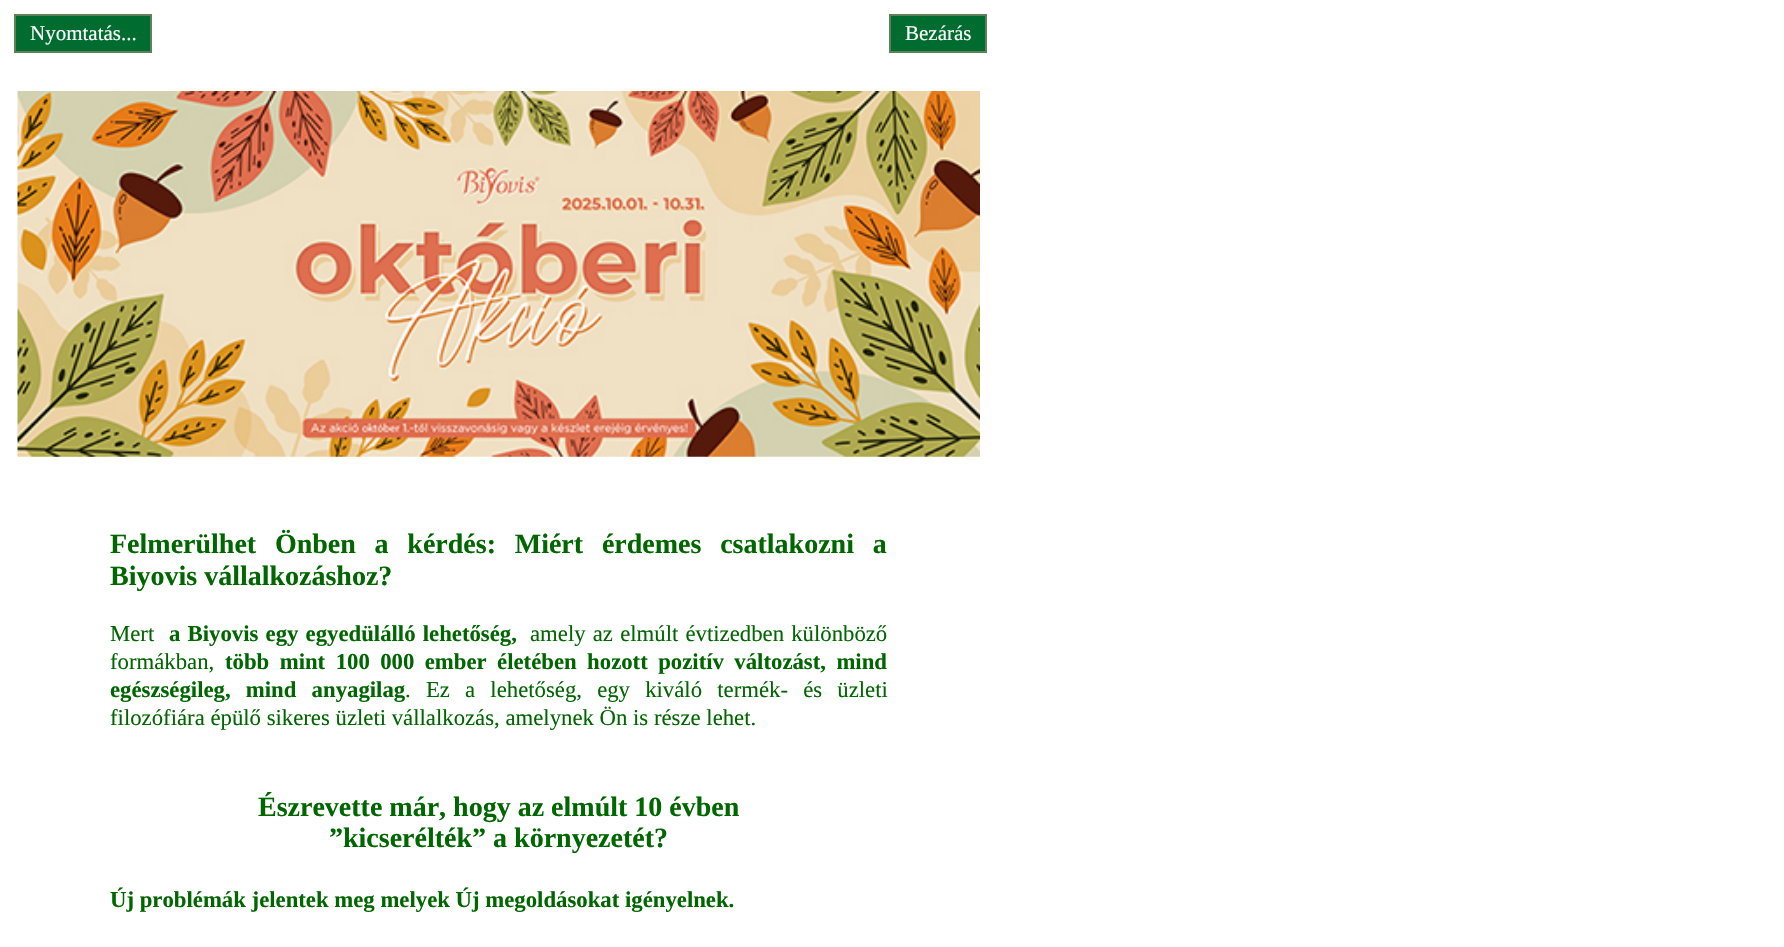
void draw(SkCanvas* canvas) {
    SkPaint paint;
    paint.setAntiAlias(true);
    auto face = [&](const char* family, int weight, float size, bool italic = false) {
        SkFontStyle style(weight, SkFontStyle::kNormal_Width,
            italic ? SkFontStyle::kItalic_Slant : SkFontStyle::kUpright_Slant);
        SkFont result(fontMgr->matchFamilyStyle(family, style), size);
        result.setSubpixel(true);
        return result;
    };
    auto write = [&](const char* s, float x, float y, const SkFont& font, SkColor color) {
        SkPaint ink(SkColor4f::FromColor(color));
        ink.setAntiAlias(true);
        canvas->drawString(s, x, y, font, ink);
    };
    auto writeSpaced = [&](const char* s, float x, float y, const SkFont& font, const SkPaint& ink, float letter, float word) {
        std::vector<SkGlyphID> glyphs(font.countText(s, strlen(s), SkTextEncoding::kUTF8));
        std::vector<float> xs(glyphs.size());
        font.textToGlyphs(s, strlen(s), SkTextEncoding::kUTF8, glyphs);
        font.getXPos(glyphs, xs, x);
        float extra = 0;
        for (size_t i = 0; i < glyphs.size(); i++) {
            xs[i] += extra;
            extra += letter + word * (glyphs[i] == font.unicharToGlyph(' '));
        }
        canvas->drawTextBlob(SkTextBlob::MakeFromPosHGlyphs(glyphs, xs, y, font), 0, 0, ink);
    };
    auto paste = [&](const char* path, float x, float y, float w, float h) {
        auto image = SkImages::DeferredFromEncodedData(SkData::MakeFromFileName(path));
        canvas->drawImageRect(image, SkRect::MakeXYWH(x, y, w, h), SkSamplingOptions());
    };
    canvas->clear(SK_ColorWHITE);
    paint.setColor(SkColorSetRGB(0, 108, 47));
    canvas->drawRect(SkRect::MakeXYWH(15, 15, 136, 37), paint);
    paint.setStyle(SkPaint::kStroke_Style);
    paint.setStrokeWidth(2);
    paint.setColor(SkColorSetRGB(96, 128, 88));
    canvas->drawRect(SkRect::MakeXYWH(15, 15, 136, 37), paint);
    auto kFont1 = face("Liberation Serif", 400, 21);
    write("Nyomtatás...", 30, 40, kFont1, SK_ColorWHITE);
    paint.setStyle(SkPaint::kFill_Style);
    paint.setColor(SkColorSetRGB(0, 108, 47));
    canvas->drawRect(SkRect::MakeXYWH(890, 15, 96, 37), paint);
    paint.setStyle(SkPaint::kStroke_Style);
    paint.setColor(SkColorSetRGB(96, 128, 88));
    canvas->drawRect(SkRect::MakeXYWH(890, 15, 96, 37), paint);
    write("Bezárás", 905, 40, kFont1, SK_ColorWHITE);
    paste("pic1.png", 17, 91, 963, 366);
    auto kFont2 = face("Liberation Serif", 700, 28);
    paint.setStyle(SkPaint::kFill_Style);
    paint.setColor(SkColorSetRGB(0, 102, 0));
    writeSpaced("Felmerülhet Önben a kérdés: Miért érdemes csatlakozni a", 110, 553, kFont2, paint, 0, 11.75f);
    write("Biyovis vállalkozáshoz?", 110, 585, kFont2, SkColorSetRGB(0, 102, 0));
    auto kFont3 = face("Liberation Serif", 400, 22.75f);
    write("Mert", 110, 641, kFont3, SkColorSetRGB(0, 102, 0));
    auto kFont4 = face("Liberation Serif", 700, 22.75f);
    writeSpaced("a Biyovis egy egyedülálló lehetőség,", 169, 641, kFont4, paint, 0, 1.5f);
    writeSpaced("amely az elmúlt évtizedben különböző", 530, 641, kFont3, paint, 0, 1.5f);
    write("formákban,", 110, 669, kFont3, SkColorSetRGB(0, 102, 0));
    writeSpaced("több mint 100 000 ember életében hozott pozitív változást, mind", 225, 669, kFont4, paint, 0, 4.75f);
    writeSpaced("egészségileg, mind anyagilag", 110, 697, kFont4, paint, 0, 9.5f);
    writeSpaced(". Ez a lehetőség, egy kiváló termék- és üzleti", 405, 697, kFont3, paint, 0, 9.5f);
    write("filozófiára épülő sikeres üzleti vállalkozás, amelynek Ön is része lehet.", 110, 725, kFont3, SkColorSetRGB(0, 102, 0));
    write("Észrevette már, hogy az elmúlt 10 évben", 258, 816, kFont2, SkColorSetRGB(0, 102, 0));
    write("”kicserélték” a környezetét?", 329, 847, kFont2, SkColorSetRGB(0, 102, 0));
    write("Új problémák jelentek meg melyek Új megoldásokat igényelnek.", 110, 907, kFont4, SkColorSetRGB(0, 102, 0));
}
